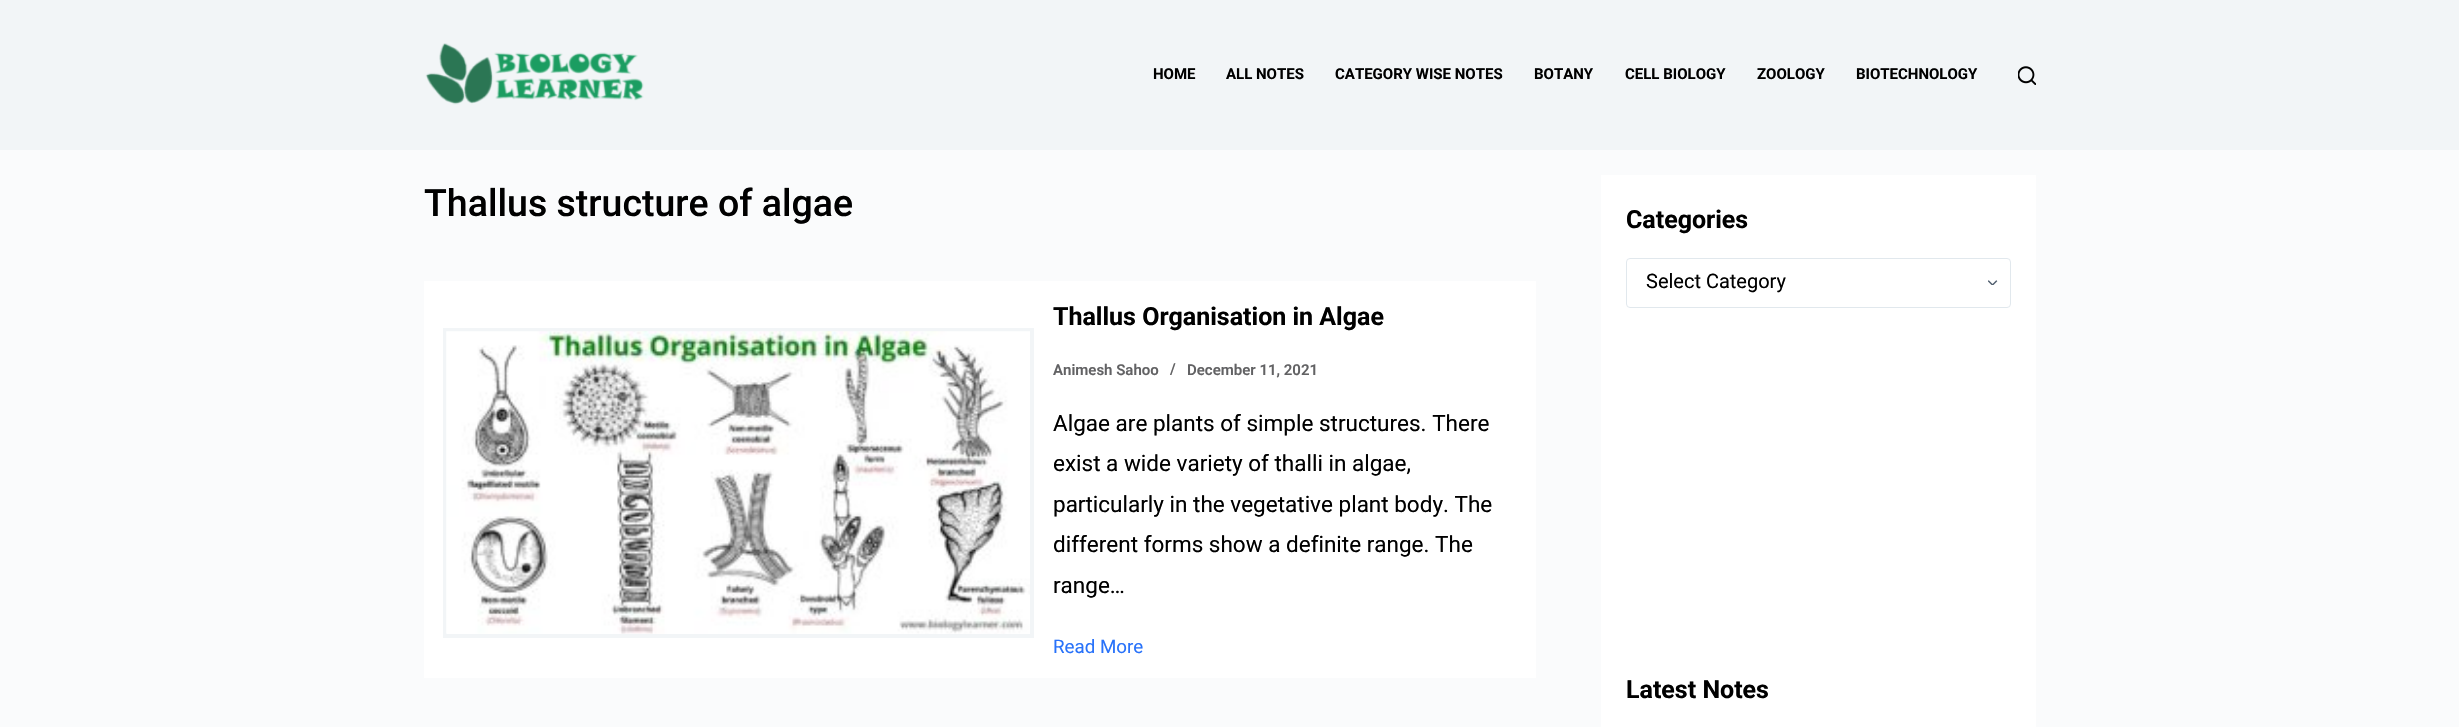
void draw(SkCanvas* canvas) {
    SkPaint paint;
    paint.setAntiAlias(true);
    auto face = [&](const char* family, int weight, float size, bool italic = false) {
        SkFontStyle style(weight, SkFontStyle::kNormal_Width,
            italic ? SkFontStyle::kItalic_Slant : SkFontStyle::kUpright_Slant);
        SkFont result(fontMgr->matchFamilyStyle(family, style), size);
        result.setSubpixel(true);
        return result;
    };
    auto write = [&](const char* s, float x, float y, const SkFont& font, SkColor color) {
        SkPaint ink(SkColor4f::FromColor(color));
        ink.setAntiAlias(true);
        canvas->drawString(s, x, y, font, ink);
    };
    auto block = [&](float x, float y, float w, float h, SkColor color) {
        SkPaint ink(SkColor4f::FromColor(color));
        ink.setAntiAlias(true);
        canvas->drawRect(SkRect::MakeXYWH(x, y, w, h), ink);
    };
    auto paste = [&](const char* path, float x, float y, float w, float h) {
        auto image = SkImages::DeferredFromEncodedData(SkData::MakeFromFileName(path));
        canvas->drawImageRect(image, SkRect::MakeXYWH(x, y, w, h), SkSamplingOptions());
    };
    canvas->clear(SkColorSetRGB(250, 251, 252));
    block(0, 0, 2459, 150, SkColorSetRGB(242, 245, 247));
    paste("pic1.png", 425, 43, 219, 62);
    auto kFont1 = face("Roboto", 700, 15);
    write("HOME", 1153, 79, kFont1, SK_ColorBLACK);
    write("ALL NOTES", 1226, 79, kFont1, SK_ColorBLACK);
    write("CATEGORY WISE NOTES", 1335, 79, kFont1, SK_ColorBLACK);
    write("BOTANY", 1534, 79, kFont1, SK_ColorBLACK);
    write("CELL BIOLOGY", 1625, 79, kFont1, SK_ColorBLACK);
    write("ZOOLOGY", 1757, 79, kFont1, SK_ColorBLACK);
    write("BIOTECHNOLOGY", 1856, 79, kFont1, SK_ColorBLACK);
    paste("pic2.png", 2018, 66, 18, 19);
    auto kFont2 = face("Roboto", 500, 37.5f);
    write("Thallus structure of algae", 424, 216, kFont2, SK_ColorBLACK);
    block(424, 281, 1112, 397, SK_ColorWHITE);
    paint.setStyle(SkPaint::kStroke_Style);
    paint.setStrokeWidth(4);
    paint.setColor(SkColorSetRGB(242, 245, 247));
    canvas->drawRect(SkRect::MakeXYWH(445, 330, 587, 306), paint);
    paste("pic3.png", 446, 331, 584, 303);
    auto kFont3 = face("Roboto", 700, 25);
    write("Thallus Organisation in Algae", 1053, 325, kFont3, SK_ColorBLACK);
    auto kFont4 = face("Roboto", 600, 15);
    write("Animesh Sahoo", 1053, 375, kFont4, SkColorSetRGB(98, 98, 100));
    write("/", 1170, 374, kFont4, SkColorSetRGB(98, 98, 100));
    write("December 11, 2021", 1187, 375, kFont4, SkColorSetRGB(98, 98, 100));
    auto kFont5 = face("Roboto", 400, 22.5f);
    write("Algae are plants of simple structures. There", 1053, 431, kFont5, SK_ColorBLACK);
    write("exist a wide variety of thalli in algae,", 1053, 471, kFont5, SK_ColorBLACK);
    write("particularly in the vegetative plant body. The", 1053, 512, kFont5, SK_ColorBLACK);
    write("different forms show a definite range. The", 1053, 552, kFont5, SK_ColorBLACK);
    write("range…", 1053, 593, kFont5, SK_ColorBLACK);
    auto kFont6 = face("Roboto", 400, 18.75f);
    write("Read More", 1053, 653, kFont6, SkColorSetRGB(40, 114, 250));
    block(1601, 175, 435, 552, SK_ColorWHITE);
    write("Categories", 1626, 228, kFont3, SK_ColorBLACK);
    paste("pic4.png", 1988, 280, 10, 5);
    paint.setStrokeWidth(1);
    paint.setColor(SkColorSetRGB(225, 232, 237));
    canvas->drawRoundRect(SkRect::MakeXYWH(1626.5f, 258.5f, 384, 49), 3.5f, 3.5f, paint);
    auto kFont7 = face("Roboto", 400, 20);
    write("Select Category", 1646, 288, kFont7, SK_ColorBLACK);
    write("Latest Notes", 1626, 698, kFont3, SK_ColorBLACK);
}
